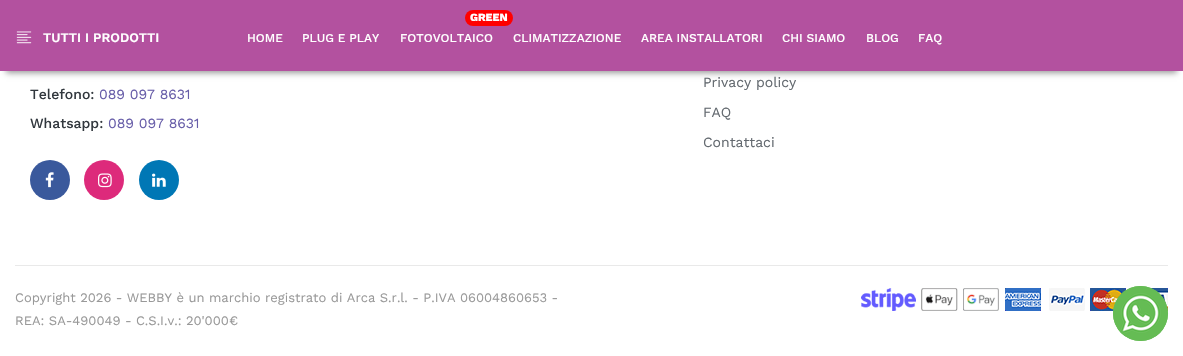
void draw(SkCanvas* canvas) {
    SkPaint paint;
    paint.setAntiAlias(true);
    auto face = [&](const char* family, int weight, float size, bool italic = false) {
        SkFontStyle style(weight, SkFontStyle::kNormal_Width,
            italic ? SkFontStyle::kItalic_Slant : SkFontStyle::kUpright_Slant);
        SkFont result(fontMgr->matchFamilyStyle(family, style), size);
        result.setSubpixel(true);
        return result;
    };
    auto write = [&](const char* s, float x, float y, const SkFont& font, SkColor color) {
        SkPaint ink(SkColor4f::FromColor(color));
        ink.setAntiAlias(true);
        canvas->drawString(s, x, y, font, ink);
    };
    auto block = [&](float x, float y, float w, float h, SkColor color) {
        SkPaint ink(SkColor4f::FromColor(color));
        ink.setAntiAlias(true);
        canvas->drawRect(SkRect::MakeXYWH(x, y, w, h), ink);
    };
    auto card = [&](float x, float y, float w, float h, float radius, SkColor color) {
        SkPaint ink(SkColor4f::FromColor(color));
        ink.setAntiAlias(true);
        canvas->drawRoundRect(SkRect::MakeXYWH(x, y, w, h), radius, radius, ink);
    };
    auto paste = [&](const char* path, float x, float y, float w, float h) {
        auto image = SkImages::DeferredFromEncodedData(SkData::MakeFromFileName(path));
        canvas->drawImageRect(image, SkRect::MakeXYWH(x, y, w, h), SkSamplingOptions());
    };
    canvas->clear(SK_ColorWHITE);
    paint.setColor(SkColorSetARGB(102, 0, 0, 0));
    paint.setMaskFilter(SkMaskFilter::MakeBlur(kNormal_SkBlurStyle, 3));
    canvas->drawRect(SkRect::MakeXYWH(6, 14, 1171, 59), paint);
    paint.setMaskFilter(nullptr);
    block(0, 0, 1183, 71, SkColorSetRGB(179, 81, 159));
    paste("pic1.png", 16, 31, 16, 13);
    auto kFont1 = face("Work Sans", 600, 13);
    write("TUTTI I PRODOTTI", 43, 42, kFont1, SK_ColorWHITE);
    auto kFont2 = face("Work Sans", 500, 12);
    write("HOME", 247, 42, kFont2, SK_ColorWHITE);
    write("PLUG E PLAY", 302, 42, kFont2, SK_ColorWHITE);
    card(465, 10, 48, 16, 8, SkColorSetRGB(255, 0, 0));
    auto kFont3 = face("Work Sans", 800, 11);
    write("GREEN", 470, 21, kFont3, SK_ColorWHITE);
    write("FOTOVOLTAICO", 400, 42, kFont2, SK_ColorWHITE);
    write("CLIMATIZZAZIONE", 513, 42, kFont2, SK_ColorWHITE);
    write("AREA INSTALLATORI", 641, 42, kFont2, SK_ColorWHITE);
    write("CHI SIAMO", 782, 42, kFont2, SK_ColorWHITE);
    write("BLOG", 866, 42, kFont2, SK_ColorWHITE);
    write("FAQ", 918, 42, kFont2, SK_ColorWHITE);
    auto kFont4 = face("Work Sans", 500, 14);
    write("Telefono:", 30, 99, kFont4, SkColorSetRGB(50, 56, 62));
    auto kFont5 = face("Work Sans", 400, 14);
    write("089 097 8631", 99, 99, kFont5, SkColorSetRGB(104, 94, 169));
    write("Whatsapp:", 30, 128, kFont4, SkColorSetRGB(50, 56, 62));
    write("089 097 8631", 108, 128, kFont5, SkColorSetRGB(104, 94, 169));
    paint.setColor(SkColorSetRGB(58, 89, 156));
    canvas->drawCircle(50, 180, 20, paint);
    paste("pic2.png", 45, 172, 9, 16);
    paint.setColor(SkColorSetRGB(221, 42, 123));
    canvas->drawCircle(104, 180, 20, paint);
    paste("pic3.png", 98, 173, 14, 15);
    paint.setColor(SkColorSetRGB(0, 119, 181));
    canvas->drawCircle(159, 180, 20, paint);
    paste("pic4.png", 152, 173, 14, 14);
    write("Privacy policy", 703, 87, kFont5, SkColorSetRGB(99, 105, 111));
    write("FAQ", 703, 117, kFont5, SkColorSetRGB(99, 105, 111));
    write("Contattaci", 703, 147, kFont5, SkColorSetRGB(99, 105, 111));
    paste("pic6.png", 861, 288, 307, 23);
    paint.setColor(SkColorSetRGB(101, 188, 84));
    canvas->drawCircle(1140.5f, 313.5f, 27.5f, paint);
    paste("pic5.png", 1118, 291, 45, 45);
    paint.setStyle(SkPaint::kStroke_Style);
    paint.setStrokeWidth(1);
    canvas->drawCircle(1140.5f, 313.5f, 27, paint);
    block(15, 265, 1153, 1, SkColorSetRGB(233, 233, 233));
    auto kFont6 = face("Work Sans", 400, 13);
    write("Copyright 2026 - WEBBY è un marchio registrato di Arca S.r.l. - P.IVA 06004860653 -", 15, 302, kFont6, SkColorSetRGB(153, 153, 153));
    write("REA: SA-490049 - C.S.I.v.: 20'000€", 15, 325, kFont6, SkColorSetRGB(153, 153, 153));
}
